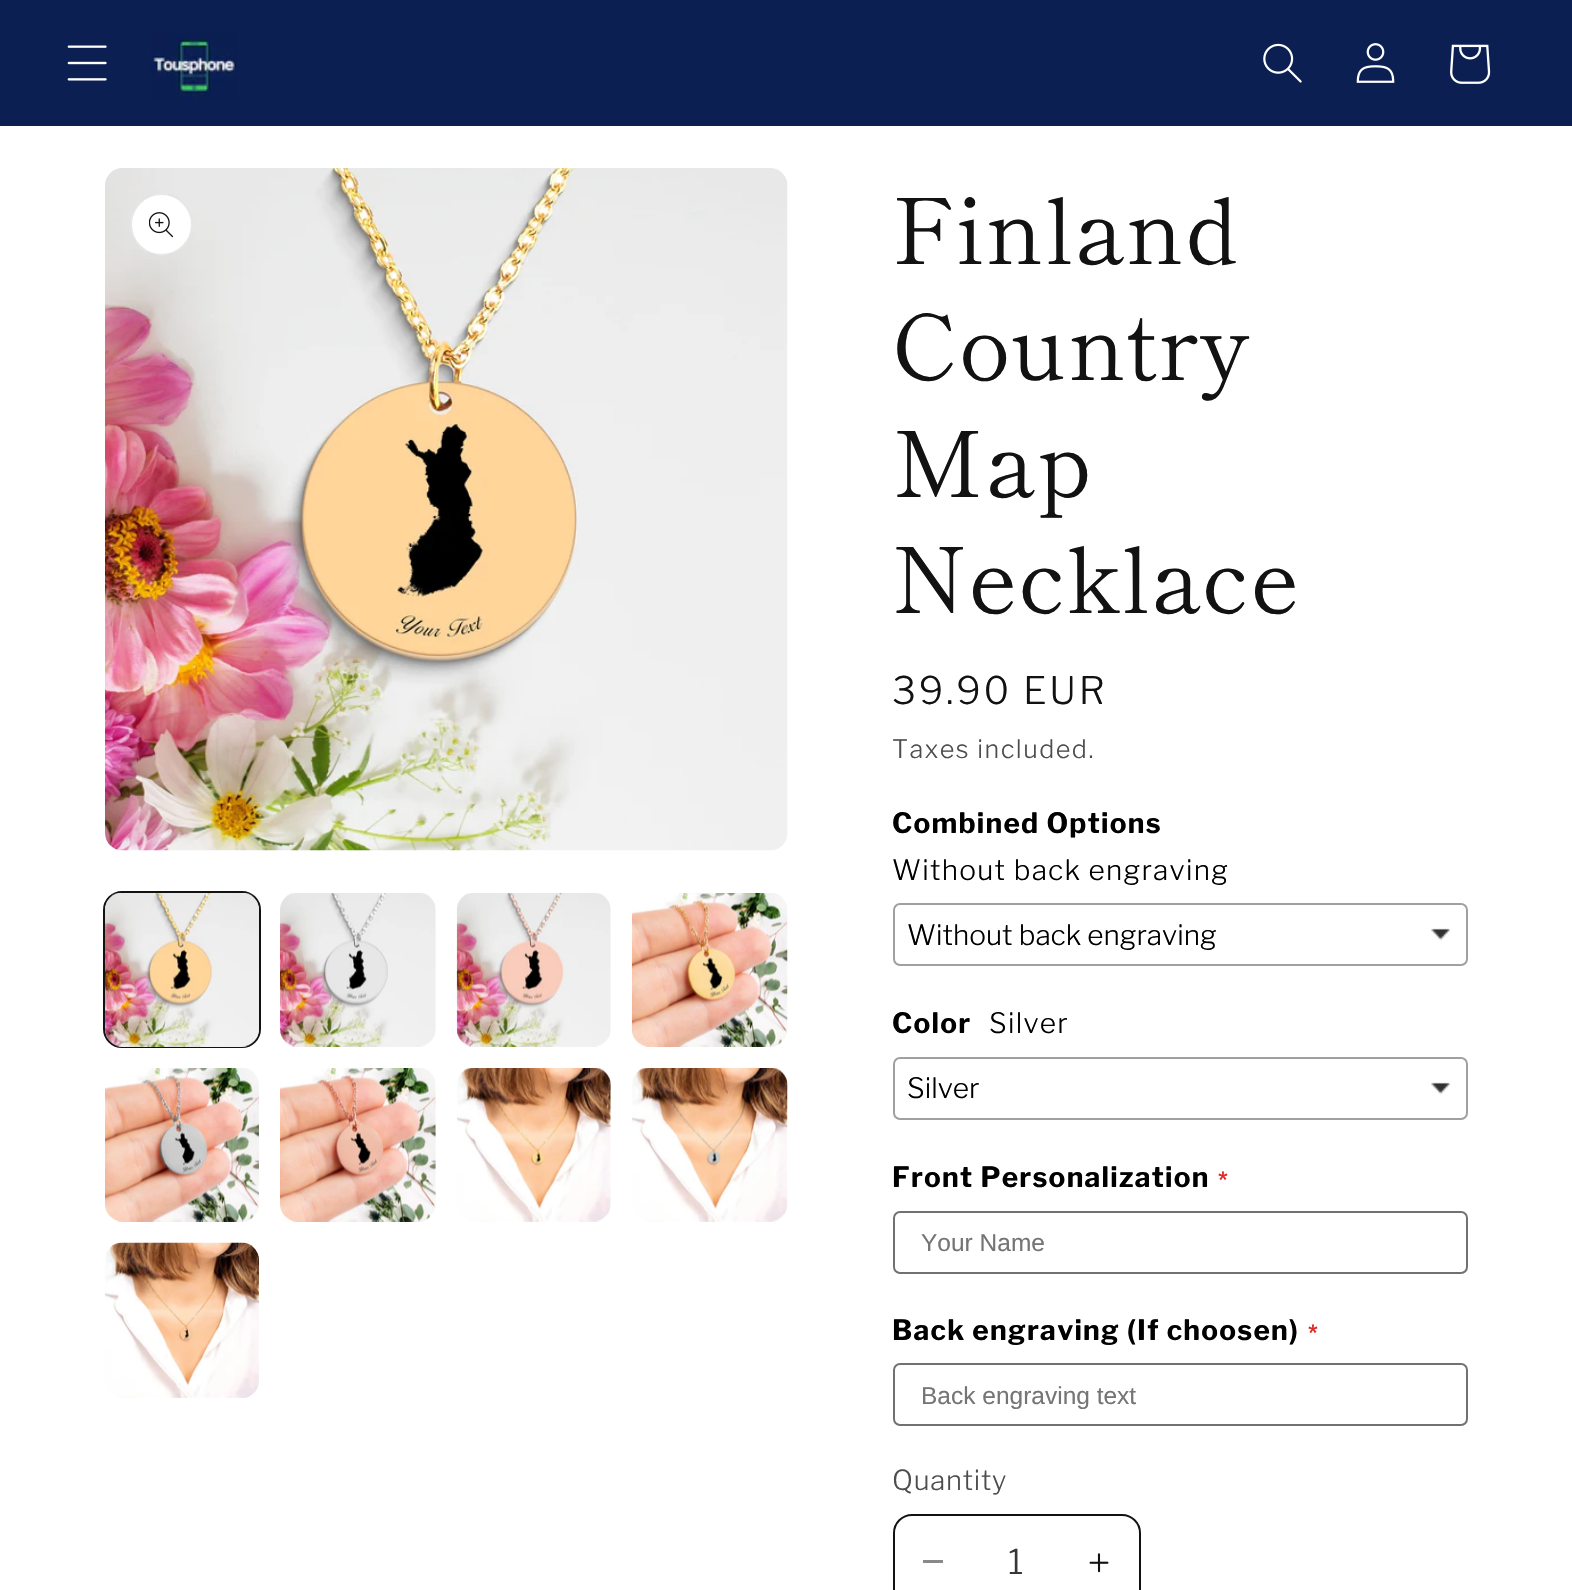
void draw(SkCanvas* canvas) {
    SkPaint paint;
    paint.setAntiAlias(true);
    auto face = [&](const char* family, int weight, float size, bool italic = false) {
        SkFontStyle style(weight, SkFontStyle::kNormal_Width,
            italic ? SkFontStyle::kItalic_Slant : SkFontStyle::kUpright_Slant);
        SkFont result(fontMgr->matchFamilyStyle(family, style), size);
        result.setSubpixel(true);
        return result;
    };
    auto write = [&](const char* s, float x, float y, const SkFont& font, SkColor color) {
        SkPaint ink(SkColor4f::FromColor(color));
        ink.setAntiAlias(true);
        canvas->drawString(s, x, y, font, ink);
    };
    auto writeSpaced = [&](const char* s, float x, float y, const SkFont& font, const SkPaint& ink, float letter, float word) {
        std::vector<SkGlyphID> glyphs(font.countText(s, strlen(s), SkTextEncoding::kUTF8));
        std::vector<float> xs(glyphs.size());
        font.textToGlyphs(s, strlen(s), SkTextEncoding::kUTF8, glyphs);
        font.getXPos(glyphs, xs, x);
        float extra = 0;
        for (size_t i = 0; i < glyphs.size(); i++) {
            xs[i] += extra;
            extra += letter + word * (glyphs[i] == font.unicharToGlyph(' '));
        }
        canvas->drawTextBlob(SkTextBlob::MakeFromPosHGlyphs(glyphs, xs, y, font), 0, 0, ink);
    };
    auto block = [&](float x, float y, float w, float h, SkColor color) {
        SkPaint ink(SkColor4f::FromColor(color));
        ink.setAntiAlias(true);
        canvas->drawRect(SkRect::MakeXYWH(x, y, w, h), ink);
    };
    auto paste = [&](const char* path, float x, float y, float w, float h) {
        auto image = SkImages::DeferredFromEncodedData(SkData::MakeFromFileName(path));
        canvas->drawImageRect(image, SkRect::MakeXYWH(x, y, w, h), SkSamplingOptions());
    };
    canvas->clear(SK_ColorWHITE);
    {
        const SkColor colors[] = {SkColorSetRGB(11, 31, 82), SkColorSetRGB(168, 255, 251)};
        const float stops[] = {1, 1};
        SkMatrix m = SkMatrix::Translate(787, 795).preScale(1112, 1125);
        paint.setShader(SkGradientShader::MakeRadial({0, 0}, 1, colors, stops, 2, SkTileMode::kClamp, 0, &m));
        paint.setAlpha(255);
    }
    canvas->drawRect(SkRect::MakeXYWH(0, 0, 1572, 126), paint);
    paste("pic1.png", 67, 45, 40, 36);
    paste("pic2.png", 151, 33, 87, 68);
    paste("pic3.png", 1263, 43, 39, 40);
    paste("pic4.png", 1356, 43, 39, 40);
    paste("pic5.png", 1450, 44, 41, 40);
    paste("pic6.png", 105, 168, 683, 683);
    paint.setShader(nullptr);
    paint.setColor(SK_ColorWHITE);
    canvas->drawCircle(161.5f, 224.5f, 31.5f, paint);
    paint.setStyle(SkPaint::kStroke_Style);
    paint.setStrokeWidth(2);
    paint.setColor(SkColorSetARGB(26, 18, 18, 18));
    canvas->drawCircle(161.5f, 224.5f, 30.5f, paint);
    paste("pic7.png", 149, 212, 25, 26);
    paint.setColor(SkColorSetRGB(18, 18, 18));
    canvas->drawRoundRect(SkRect::MakeXYWH(104, 892, 156, 155), 18, 18, paint);
    paste("pic8.png", 105, 893, 154, 154);
    paste("pic9.png", 280, 893, 156, 154);
    paste("pic10.png", 456, 893, 155, 154);
    paste("pic11.png", 631, 893, 157, 154);
    paste("pic12.png", 105, 1068, 154, 154);
    paste("pic13.png", 280, 1068, 156, 154);
    paste("pic14.png", 457, 1068, 154, 154);
    paste("pic15.png", 632, 1068, 156, 154);
    paste("pic16.png", 105, 1242, 154, 156);
    auto kFont1 = face("Shippori Mincho", 400, 91);
    paint.setStyle(SkPaint::kFill_Style);
    writeSpaced("Finland", 892, 264, kFont1, paint, 1.25f, 0);
    writeSpaced("Country", 892, 380, kFont1, paint, 1.25f, 0);
    writeSpaced("Map", 892, 497, kFont1, paint, 1.25f, 0);
    writeSpaced("Necklace", 892, 613, kFont1, paint, 1.25f, 0);
    auto kFont2 = face("Libre Franklin", 300, 37.75f);
    writeSpaced("39.90 EUR", 892, 704, kFont2, paint, 2.75f, 0);
    auto kFont3 = face("Libre Franklin", 300, 25.25f);
    paint.setColor(SkColorSetRGB(77, 77, 77));
    writeSpaced("Taxes included.", 892, 758, kFont3, paint, 1.5f, 0);
    auto kFont4 = face("Libre Franklin", 700, 28);
    paint.setColor(SK_ColorBLACK);
    writeSpaced("Combined Options", 892, 833, kFont4, paint, 1.25f, 0);
    auto kFont5 = face("Libre Franklin", 300, 28);
    writeSpaced("Without back engraving", 892, 880, kFont5, paint, 1.25f, 0);
    paste("pic17.png", 1431, 928, 20, 13);
    paint.setStyle(SkPaint::kStroke_Style);
    paint.setColor(SkColorSetRGB(160, 160, 160));
    canvas->drawRoundRect(SkRect::MakeXYWH(894, 904, 573, 61), 6, 6, paint);
    write("Without back engraving", 907, 945, kFont5, SK_ColorBLACK);
    paint.setStyle(SkPaint::kFill_Style);
    paint.setColor(SK_ColorBLACK);
    writeSpaced("Color", 892, 1033, kFont4, paint, 1.25f, 0);
    writeSpaced("Silver", 989, 1033, kFont5, paint, 1.25f, 0);
    paste("pic17.png", 1431, 1082, 20, 13);
    paint.setStyle(SkPaint::kStroke_Style);
    paint.setColor(SkColorSetRGB(160, 160, 160));
    canvas->drawRoundRect(SkRect::MakeXYWH(894, 1058, 573, 61), 6, 6, paint);
    write("Silver", 907, 1098, kFont5, SK_ColorBLACK);
    paint.setStyle(SkPaint::kFill_Style);
    paint.setColor(SK_ColorBLACK);
    writeSpaced("Front Personalization", 892, 1187, kFont4, paint, 1.25f, 0);
    auto kFont6 = face("Libre Franklin", 700, 21);
    paint.setColor(SkColorSetRGB(224, 43, 39));
    writeSpaced("*", 1218, 1187, kFont6, paint, 1.25f, 0);
    paint.setStyle(SkPaint::kStroke_Style);
    paint.setColor(SkColorSetRGB(113, 113, 113));
    canvas->drawRoundRect(SkRect::MakeXYWH(894, 1212, 573, 61), 6, 6, paint);
    auto kFont7 = face("Liberation Sans", 400, 24.5f);
    write("Your Name", 921, 1251, kFont7, SkColorSetRGB(117, 117, 117));
    paint.setStyle(SkPaint::kFill_Style);
    paint.setColor(SK_ColorBLACK);
    writeSpaced("Back engraving (If choosen)", 892, 1340, kFont4, paint, 1.25f, 0);
    paint.setColor(SkColorSetRGB(224, 43, 39));
    writeSpaced("*", 1308, 1340, kFont6, paint, 1.25f, 0);
    paint.setStyle(SkPaint::kStroke_Style);
    paint.setColor(SkColorSetRGB(113, 113, 113));
    canvas->drawRoundRect(SkRect::MakeXYWH(894, 1364, 573, 61), 6, 6, paint);
    write("Back engraving text", 921, 1404, kFont7, SkColorSetRGB(117, 117, 117));
    auto kFont8 = face("Libre Franklin", 300, 27.5f);
    paint.setStyle(SkPaint::kFill_Style);
    paint.setColor(SkColorSetRGB(77, 77, 77));
    writeSpaced("Quantity", 892, 1490, kFont8, paint, 0.75f, 0);
    block(923, 1560, 20, 3, SkColorSetRGB(137, 137, 137));
    paste("pic18.png", 1089, 1553, 20, 20);
    paint.setStyle(SkPaint::kStroke_Style);
    paint.setColor(SkColorSetRGB(18, 18, 18));
    canvas->drawRoundRect(SkRect::MakeXYWH(894, 1515, 246, 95), 18, 18, paint);
    auto kFont9 = face("Libre Franklin", 300, 34);
    write("1", 1008, 1574, kFont9, SkColorSetRGB(54, 54, 54));
}
